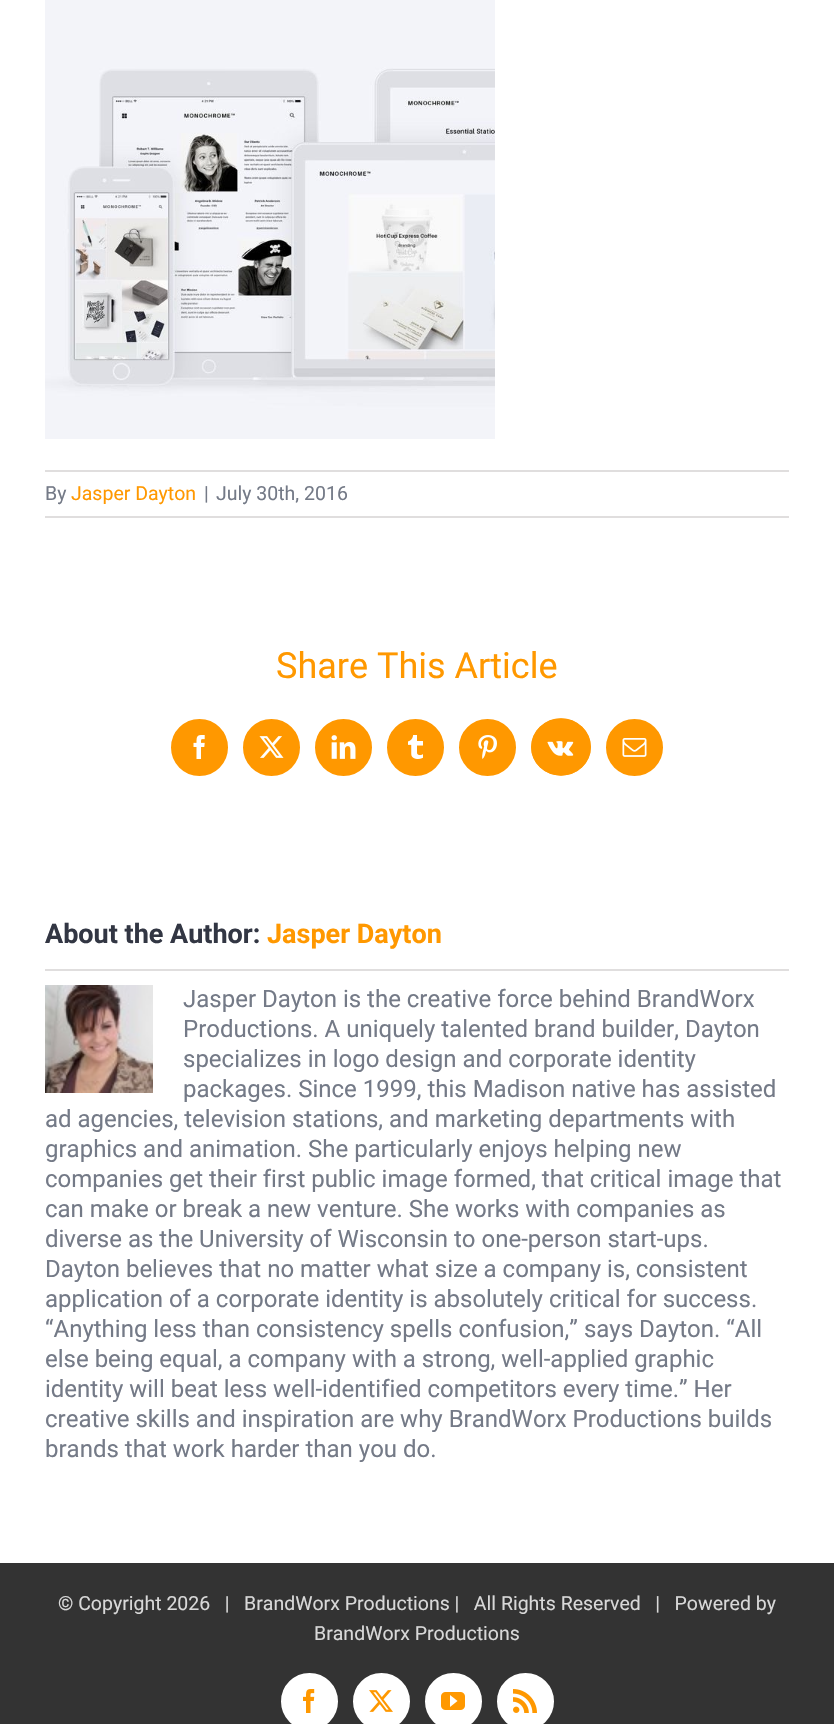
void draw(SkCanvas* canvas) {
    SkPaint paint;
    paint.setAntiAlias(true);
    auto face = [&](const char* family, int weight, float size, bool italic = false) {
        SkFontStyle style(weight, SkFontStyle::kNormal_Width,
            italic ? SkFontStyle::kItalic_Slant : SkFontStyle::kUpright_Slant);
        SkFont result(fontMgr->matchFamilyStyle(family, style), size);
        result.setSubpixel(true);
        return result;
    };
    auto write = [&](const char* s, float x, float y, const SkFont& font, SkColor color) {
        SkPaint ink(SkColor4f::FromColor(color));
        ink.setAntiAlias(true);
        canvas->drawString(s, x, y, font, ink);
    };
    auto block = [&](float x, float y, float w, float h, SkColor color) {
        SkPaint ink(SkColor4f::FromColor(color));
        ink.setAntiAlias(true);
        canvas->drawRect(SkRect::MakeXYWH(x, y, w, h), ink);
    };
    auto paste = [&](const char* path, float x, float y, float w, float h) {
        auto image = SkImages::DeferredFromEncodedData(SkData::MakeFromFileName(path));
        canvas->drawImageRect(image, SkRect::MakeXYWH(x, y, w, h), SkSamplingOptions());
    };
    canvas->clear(SK_ColorWHITE);
    paste("pic1.png", 45, 0, 450, 439);
    block(45, 470, 744, 2, SkColorSetRGB(224, 222, 222));
    block(45, 516, 744, 2, SkColorSetRGB(224, 222, 222));
    auto kFont1 = face("Roboto", 400, 19.5f);
    write("By", 45, 500, kFont1, SkColorSetRGB(116, 122, 135));
    write("Jasper Dayton", 71, 500, kFont1, SkColorSetRGB(255, 152, 0));
    write("|", 204, 500, kFont1, SkColorSetRGB(116, 122, 135));
    write("July 30th, 2016", 216, 500, kFont1, SkColorSetRGB(116, 122, 135));
    auto kFont2 = face("Roboto", 400, 36);
    write("Share This Article", 276, 678, kFont2, SkColorSetRGB(255, 152, 0));
    paint.setColor(SkColorSetRGB(255, 152, 0));
    canvas->drawCircle(199.5f, 747.5f, 27.5f, paint);
    paint.setStyle(SkPaint::kStroke_Style);
    paint.setStrokeWidth(2);
    canvas->drawCircle(199.5f, 747.5f, 27.5f, paint);
    paste("pic2.png", 193, 735, 12, 24);
    paint.setStyle(SkPaint::kFill_Style);
    canvas->drawCircle(271.5f, 747.5f, 27.5f, paint);
    paint.setStyle(SkPaint::kStroke_Style);
    canvas->drawCircle(271.5f, 747.5f, 27.5f, paint);
    paste("pic3.png", 259, 736, 25, 22);
    paint.setStyle(SkPaint::kFill_Style);
    canvas->drawCircle(343.5f, 747.5f, 27.5f, paint);
    paint.setStyle(SkPaint::kStroke_Style);
    canvas->drawCircle(343.5f, 747.5f, 27.5f, paint);
    paste("pic4.png", 331, 735, 25, 24);
    paint.setStyle(SkPaint::kFill_Style);
    canvas->drawCircle(415.5f, 747.5f, 27.5f, paint);
    paint.setStyle(SkPaint::kStroke_Style);
    canvas->drawCircle(415.5f, 747.5f, 27.5f, paint);
    paste("pic5.png", 408, 735, 15, 24);
    paint.setStyle(SkPaint::kFill_Style);
    canvas->drawCircle(487.5f, 747.5f, 27.5f, paint);
    paint.setStyle(SkPaint::kStroke_Style);
    canvas->drawCircle(487.5f, 747.5f, 27.5f, paint);
    paste("pic6.png", 478, 735, 19, 24);
    paint.setStyle(SkPaint::kFill_Style);
    canvas->drawOval(SkRect::MakeXYWH(531, 718.5f, 60, 57), paint);
    paint.setStyle(SkPaint::kStroke_Style);
    paint.setStrokeWidth(1.5f);
    canvas->drawPath(SkPathBuilder().moveTo(561, 719).cubicTo(577, 719, 590, 731.5f, 590, 747).cubicTo(590, 762.5f, 577, 775, 561, 775).cubicTo(545, 775, 532, 762.5f, 532, 747).cubicTo(532, 731.5f, 545, 719, 561, 719).close().detach(), paint);
    paste("pic7.png", 547, 741, 27, 15);
    paint.setStyle(SkPaint::kFill_Style);
    canvas->drawCircle(634.5f, 747.5f, 27.5f, paint);
    paint.setStyle(SkPaint::kStroke_Style);
    paint.setStrokeWidth(2);
    canvas->drawCircle(634.5f, 747.5f, 27.5f, paint);
    paste("pic8.png", 622, 738, 25, 19);
    block(45, 969, 744, 2, SkColorSetRGB(224, 222, 222));
    auto kFont3 = face("Roboto", 700, 27);
    write("About the Author:", 45, 943, kFont3, SkColorSetRGB(50, 54, 67));
    write("Jasper Dayton", 267, 943, kFont3, SkColorSetRGB(255, 152, 0));
    paste("pic9.png", 45, 985, 108, 108);
    auto kFont4 = face("Roboto", 400, 24);
    write("Jasper Dayton is the creative force behind BrandWorx", 183, 1007, kFont4, SkColorSetRGB(116, 122, 135));
    write("Productions. A uniquely talented brand builder, Dayton", 183, 1037, kFont4, SkColorSetRGB(116, 122, 135));
    write("specializes in logo design and corporate identity", 183, 1067, kFont4, SkColorSetRGB(116, 122, 135));
    write("packages. Since 1999, this Madison native has assisted", 183, 1097, kFont4, SkColorSetRGB(116, 122, 135));
    write("ad agencies, television stations, and marketing departments with", 45, 1127, kFont4, SkColorSetRGB(116, 122, 135));
    write("graphics and animation. She particularly enjoys helping new", 45, 1157, kFont4, SkColorSetRGB(116, 122, 135));
    write("companies get their first public image formed, that critical image that", 45, 1187, kFont4, SkColorSetRGB(116, 122, 135));
    write("can make or break a new venture. She works with companies as", 45, 1217, kFont4, SkColorSetRGB(116, 122, 135));
    write("diverse as the University of Wisconsin to one-person start-ups.", 45, 1247, kFont4, SkColorSetRGB(116, 122, 135));
    write("Dayton believes that no matter what size a company is, consistent", 45, 1277, kFont4, SkColorSetRGB(116, 122, 135));
    write("application of a corporate identity is absolutely critical for success.", 45, 1307, kFont4, SkColorSetRGB(116, 122, 135));
    write("“Anything less than consistency spells confusion,” says Dayton. “All", 45, 1337, kFont4, SkColorSetRGB(116, 122, 135));
    write("else being equal, a company with a strong, well-applied graphic", 45, 1367, kFont4, SkColorSetRGB(116, 122, 135));
    write("identity will beat less well-identified competitors every time.” Her", 45, 1397, kFont4, SkColorSetRGB(116, 122, 135));
    write("creative skills and inspiration are why BrandWorx Productions builds", 45, 1427, kFont4, SkColorSetRGB(116, 122, 135));
    write("brands that work harder than you do.", 45, 1457, kFont4, SkColorSetRGB(116, 122, 135));
    block(0, 1563, 834, 161, SkColorSetRGB(51, 51, 51));
    write("© Copyright 2026   |   BrandWorx Productions |   All Rights Reserved   |   Powered by", 58, 1610, kFont1, SkColorSetRGB(216, 216, 216));
    write("BrandWorx Productions", 314, 1640, kFont1, SkColorSetRGB(216, 216, 216));
    paint.setStyle(SkPaint::kFill_Style);
    paint.setColor(SK_ColorWHITE);
    canvas->drawCircle(309.5f, 1701.5f, 27.5f, paint);
    paint.setStyle(SkPaint::kStroke_Style);
    canvas->drawCircle(309.5f, 1701.5f, 27.5f, paint);
    paste("pic10.png", 303, 1689, 12, 24);
    paint.setStyle(SkPaint::kFill_Style);
    canvas->drawCircle(381.5f, 1701.5f, 27.5f, paint);
    paint.setStyle(SkPaint::kStroke_Style);
    canvas->drawCircle(381.5f, 1701.5f, 27.5f, paint);
    paste("pic11.png", 369, 1690, 24, 22);
    paint.setStyle(SkPaint::kFill_Style);
    canvas->drawCircle(453.5f, 1701.5f, 27.5f, paint);
    paint.setStyle(SkPaint::kStroke_Style);
    canvas->drawCircle(453.5f, 1701.5f, 27.5f, paint);
    paste("pic12.png", 441, 1692, 24, 18);
    paint.setStyle(SkPaint::kFill_Style);
    canvas->drawCircle(525.5f, 1701.5f, 27.5f, paint);
    paint.setStyle(SkPaint::kStroke_Style);
    canvas->drawCircle(525.5f, 1701.5f, 27.5f, paint);
    paste("pic13.png", 513, 1689, 24, 24);
}
